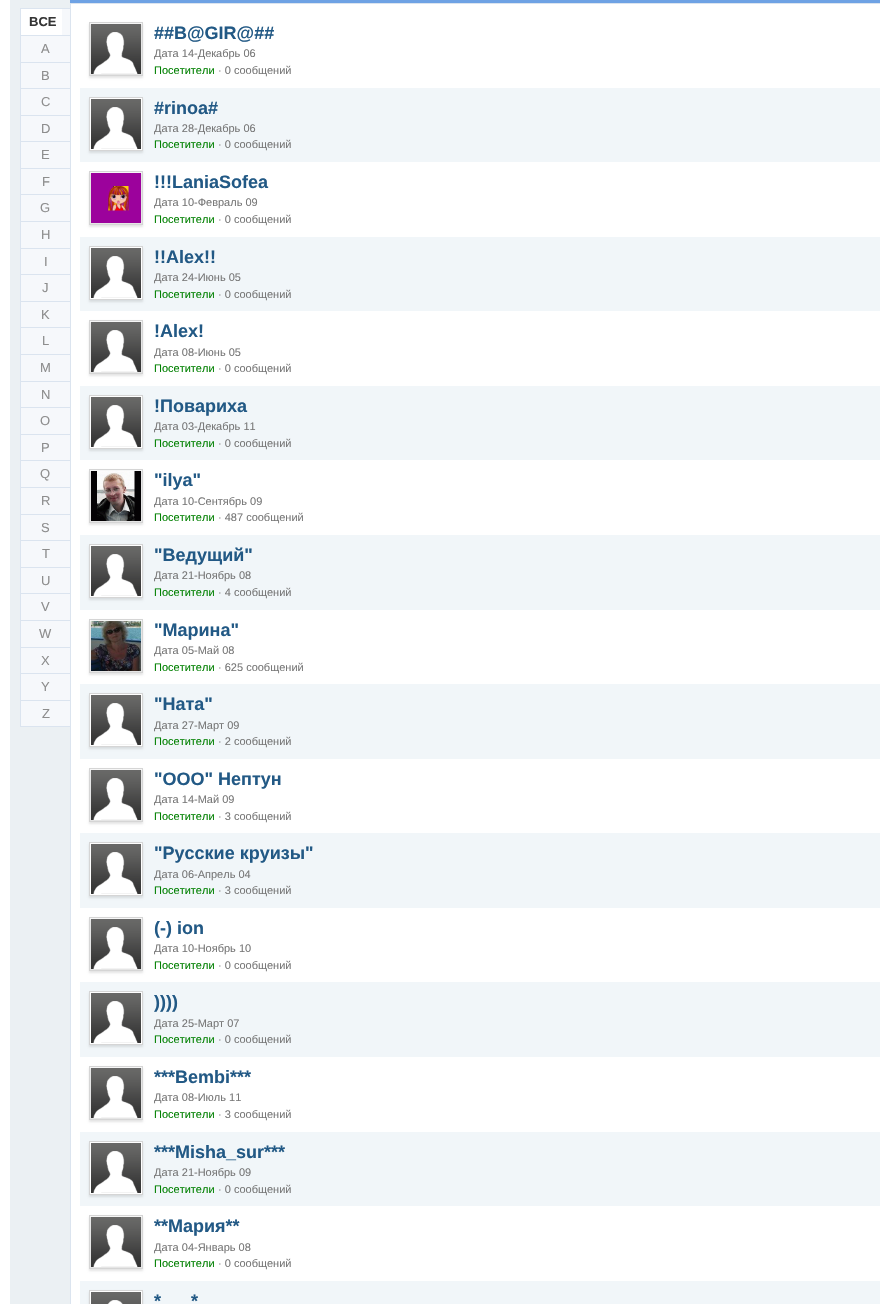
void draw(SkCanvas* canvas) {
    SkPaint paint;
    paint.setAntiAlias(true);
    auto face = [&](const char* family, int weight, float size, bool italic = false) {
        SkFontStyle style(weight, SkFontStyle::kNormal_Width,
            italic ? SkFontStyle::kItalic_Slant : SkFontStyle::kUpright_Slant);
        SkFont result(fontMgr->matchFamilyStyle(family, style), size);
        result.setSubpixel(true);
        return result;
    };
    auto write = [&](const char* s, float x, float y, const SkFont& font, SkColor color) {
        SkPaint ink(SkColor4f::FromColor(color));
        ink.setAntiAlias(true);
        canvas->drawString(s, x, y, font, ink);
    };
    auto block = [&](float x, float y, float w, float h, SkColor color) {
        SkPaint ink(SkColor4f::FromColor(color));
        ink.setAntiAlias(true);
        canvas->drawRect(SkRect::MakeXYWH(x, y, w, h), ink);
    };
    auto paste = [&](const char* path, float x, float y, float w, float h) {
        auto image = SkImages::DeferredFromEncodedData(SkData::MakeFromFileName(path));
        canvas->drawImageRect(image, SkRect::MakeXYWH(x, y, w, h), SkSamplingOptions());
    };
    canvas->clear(SK_ColorWHITE);
    block(10, 0, 60, 1304, SkColorSetRGB(235, 240, 243));
    block(20, 8, 50, 1, SkColorSetRGB(219, 228, 239));
    block(20, 8, 1, 719, SkColorSetRGB(219, 228, 239));
    block(62, 9, 8, 26, SkColorSetRGB(246, 248, 251));
    block(21, 35, 49, 1, SkColorSetRGB(219, 228, 239));
    block(21, 9, 41, 26, SK_ColorWHITE);
    auto kFont1 = face("Liberation Sans", 700, 13);
    write("ВСЕ", 29, 26, kFont1, SkColorSetRGB(53, 53, 53));
    block(21, 36, 49, 26, SkColorSetRGB(246, 248, 251));
    block(21, 62, 49, 1, SkColorSetRGB(219, 228, 239));
    auto kFont2 = face("Liberation Sans", 400, 13);
    write("A", 41, 53, kFont2, SkColorSetRGB(141, 141, 141));
    block(21, 63, 49, 25, SkColorSetRGB(246, 248, 251));
    block(21, 88, 49, 1, SkColorSetRGB(219, 228, 239));
    write("B", 41, 80, kFont2, SkColorSetRGB(141, 141, 141));
    block(21, 89, 49, 26, SkColorSetRGB(246, 248, 251));
    block(21, 115, 49, 1, SkColorSetRGB(219, 228, 239));
    write("C", 41, 106, kFont2, SkColorSetRGB(141, 141, 141));
    block(21, 116, 49, 25, SkColorSetRGB(246, 248, 251));
    block(21, 141, 49, 1, SkColorSetRGB(219, 228, 239));
    write("D", 41, 133, kFont2, SkColorSetRGB(141, 141, 141));
    block(21, 142, 49, 26, SkColorSetRGB(246, 248, 251));
    block(21, 168, 49, 1, SkColorSetRGB(219, 228, 239));
    write("E", 41, 159, kFont2, SkColorSetRGB(141, 141, 141));
    block(21, 169, 49, 25, SkColorSetRGB(246, 248, 251));
    block(21, 194, 49, 1, SkColorSetRGB(219, 228, 239));
    write("F", 42, 186, kFont2, SkColorSetRGB(141, 141, 141));
    block(21, 195, 49, 26, SkColorSetRGB(246, 248, 251));
    block(21, 221, 49, 1, SkColorSetRGB(219, 228, 239));
    write("G", 40, 212, kFont2, SkColorSetRGB(141, 141, 141));
    block(21, 222, 49, 26, SkColorSetRGB(246, 248, 251));
    block(21, 248, 49, 1, SkColorSetRGB(219, 228, 239));
    write("H", 41, 239, kFont2, SkColorSetRGB(141, 141, 141));
    block(21, 249, 49, 25, SkColorSetRGB(246, 248, 251));
    block(21, 274, 49, 1, SkColorSetRGB(219, 228, 239));
    write("I", 44, 266, kFont2, SkColorSetRGB(141, 141, 141));
    block(21, 275, 49, 26, SkColorSetRGB(246, 248, 251));
    block(21, 301, 49, 1, SkColorSetRGB(219, 228, 239));
    write("J", 42, 292, kFont2, SkColorSetRGB(141, 141, 141));
    block(21, 302, 49, 25, SkColorSetRGB(246, 248, 251));
    block(21, 327, 49, 1, SkColorSetRGB(219, 228, 239));
    write("K", 41, 319, kFont2, SkColorSetRGB(141, 141, 141));
    block(21, 328, 49, 26, SkColorSetRGB(246, 248, 251));
    block(21, 354, 49, 1, SkColorSetRGB(219, 228, 239));
    write("L", 42, 345, kFont2, SkColorSetRGB(141, 141, 141));
    block(21, 355, 49, 26, SkColorSetRGB(246, 248, 251));
    block(21, 381, 49, 1, SkColorSetRGB(219, 228, 239));
    write("M", 40, 372, kFont2, SkColorSetRGB(141, 141, 141));
    block(21, 382, 49, 25, SkColorSetRGB(246, 248, 251));
    block(21, 407, 49, 1, SkColorSetRGB(219, 228, 239));
    write("N", 41, 399, kFont2, SkColorSetRGB(141, 141, 141));
    block(21, 408, 49, 26, SkColorSetRGB(246, 248, 251));
    block(21, 434, 49, 1, SkColorSetRGB(219, 228, 239));
    write("O", 40, 425, kFont2, SkColorSetRGB(141, 141, 141));
    block(21, 435, 49, 25, SkColorSetRGB(246, 248, 251));
    block(21, 460, 49, 1, SkColorSetRGB(219, 228, 239));
    write("P", 41, 452, kFont2, SkColorSetRGB(141, 141, 141));
    block(21, 461, 49, 26, SkColorSetRGB(246, 248, 251));
    block(21, 487, 49, 1, SkColorSetRGB(219, 228, 239));
    write("Q", 40, 478, kFont2, SkColorSetRGB(141, 141, 141));
    block(21, 488, 49, 26, SkColorSetRGB(246, 248, 251));
    block(21, 514, 49, 1, SkColorSetRGB(219, 228, 239));
    write("R", 41, 505, kFont2, SkColorSetRGB(141, 141, 141));
    block(21, 515, 49, 25, SkColorSetRGB(246, 248, 251));
    block(21, 540, 49, 1, SkColorSetRGB(219, 228, 239));
    write("S", 41, 532, kFont2, SkColorSetRGB(141, 141, 141));
    block(21, 541, 49, 26, SkColorSetRGB(246, 248, 251));
    block(21, 567, 49, 1, SkColorSetRGB(219, 228, 239));
    write("T", 42, 558, kFont2, SkColorSetRGB(141, 141, 141));
    block(21, 568, 49, 25, SkColorSetRGB(246, 248, 251));
    block(21, 593, 49, 1, SkColorSetRGB(219, 228, 239));
    write("U", 41, 585, kFont2, SkColorSetRGB(141, 141, 141));
    block(21, 594, 49, 26, SkColorSetRGB(246, 248, 251));
    block(21, 620, 49, 1, SkColorSetRGB(219, 228, 239));
    write("V", 41, 611, kFont2, SkColorSetRGB(141, 141, 141));
    block(21, 621, 49, 26, SkColorSetRGB(246, 248, 251));
    block(21, 647, 49, 1, SkColorSetRGB(219, 228, 239));
    write("W", 39, 638, kFont2, SkColorSetRGB(141, 141, 141));
    block(21, 648, 49, 25, SkColorSetRGB(246, 248, 251));
    block(21, 673, 49, 1, SkColorSetRGB(219, 228, 239));
    write("X", 41, 665, kFont2, SkColorSetRGB(141, 141, 141));
    block(21, 674, 49, 26, SkColorSetRGB(246, 248, 251));
    block(21, 700, 49, 1, SkColorSetRGB(219, 228, 239));
    write("Y", 41, 691, kFont2, SkColorSetRGB(141, 141, 141));
    block(21, 701, 49, 25, SkColorSetRGB(246, 248, 251));
    block(21, 726, 49, 1, SkColorSetRGB(219, 228, 239));
    write("Z", 42, 718, kFont2, SkColorSetRGB(141, 141, 141));
    block(70, 0, 810, 3, SkColorSetRGB(110, 162, 228));
    paint.setStyle(SkPaint::kStroke_Style);
    paint.setStrokeWidth(1);
    paint.setColor(SkColorSetRGB(219, 228, 239));
    canvas->drawRect(SkRect::MakeXYWH(70.5f, 3.5f, 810, 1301), paint);
    paint.setStyle(SkPaint::kFill_Style);
    paint.setColor(SkColorSetARGB(26, 0, 0, 0));
    paint.setMaskFilter(SkMaskFilter::MakeBlur(kNormal_SkBlurStyle, 1));
    canvas->drawRect(SkRect::MakeXYWH(89, 24, 54, 54), paint);
    paint.setMaskFilter(nullptr);
    paint.setStyle(SkPaint::kStroke_Style);
    paint.setColor(SkColorSetRGB(213, 213, 213));
    canvas->drawRect(SkRect::MakeXYWH(89.5f, 22.5f, 53, 53), paint);
    paste("pic1.png", 91, 24, 50, 50);
    auto kFont3 = face("Liberation Sans", 700, 18);
    write("##B@GIR@##", 154, 39, kFont3, SkColorSetRGB(34, 89, 133));
    auto kFont4 = face("Liberation Sans", 400, 11);
    write("Дата 14-Декабрь 06", 154, 57, kFont4, SkColorSetRGB(119, 119, 119));
    write("Посетители", 154, 74, kFont4, SkColorSetRGB(0, 128, 0));
    write("· 0 сообщений", 218, 74, kFont4, SkColorSetRGB(119, 119, 119));
    block(80, 88, 800, 74, SkColorSetRGB(241, 246, 249));
    paint.setStyle(SkPaint::kFill_Style);
    paint.setColor(SkColorSetARGB(26, 0, 0, 0));
    paint.setMaskFilter(SkMaskFilter::MakeBlur(kNormal_SkBlurStyle, 1));
    canvas->drawRect(SkRect::MakeXYWH(89, 99, 54, 54), paint);
    paint.setMaskFilter(nullptr);
    paint.setColor(SK_ColorWHITE);
    canvas->drawRect(SkRect::MakeXYWH(89.5f, 97.5f, 53, 53), paint);
    paint.setStyle(SkPaint::kStroke_Style);
    paint.setColor(SkColorSetRGB(213, 213, 213));
    canvas->drawRect(SkRect::MakeXYWH(89.5f, 97.5f, 53, 53), paint);
    paste("pic1.png", 91, 99, 50, 50);
    write("#rinoa#", 154, 114, kFont3, SkColorSetRGB(34, 89, 133));
    write("Дата 28-Декабрь 06", 154, 132, kFont4, SkColorSetRGB(119, 119, 119));
    write("Посетители", 154, 148, kFont4, SkColorSetRGB(0, 128, 0));
    write("· 0 сообщений", 218, 148, kFont4, SkColorSetRGB(119, 119, 119));
    paint.setStyle(SkPaint::kFill_Style);
    paint.setColor(SkColorSetARGB(26, 0, 0, 0));
    paint.setMaskFilter(SkMaskFilter::MakeBlur(kNormal_SkBlurStyle, 1));
    canvas->drawRect(SkRect::MakeXYWH(89, 173, 54, 54), paint);
    paint.setMaskFilter(nullptr);
    paint.setStyle(SkPaint::kStroke_Style);
    paint.setColor(SkColorSetRGB(213, 213, 213));
    canvas->drawRect(SkRect::MakeXYWH(89.5f, 171.5f, 53, 53), paint);
    paste("pic2.png", 91, 173, 50, 50);
    write("!!!LaniaSofea", 154, 188, kFont3, SkColorSetRGB(34, 89, 133));
    write("Дата 10-Февраль 09", 154, 206, kFont4, SkColorSetRGB(119, 119, 119));
    write("Посетители", 154, 223, kFont4, SkColorSetRGB(0, 128, 0));
    write("· 0 сообщений", 218, 223, kFont4, SkColorSetRGB(119, 119, 119));
    block(80, 237, 800, 74, SkColorSetRGB(241, 246, 249));
    paint.setStyle(SkPaint::kFill_Style);
    paint.setColor(SkColorSetARGB(26, 0, 0, 0));
    paint.setMaskFilter(SkMaskFilter::MakeBlur(kNormal_SkBlurStyle, 1));
    canvas->drawRect(SkRect::MakeXYWH(89, 248, 54, 54), paint);
    paint.setMaskFilter(nullptr);
    paint.setColor(SK_ColorWHITE);
    canvas->drawRect(SkRect::MakeXYWH(89.5f, 246.5f, 53, 53), paint);
    paint.setStyle(SkPaint::kStroke_Style);
    paint.setColor(SkColorSetRGB(213, 213, 213));
    canvas->drawRect(SkRect::MakeXYWH(89.5f, 246.5f, 53, 53), paint);
    paste("pic1.png", 91, 248, 50, 50);
    write("!!Alex!!", 154, 263, kFont3, SkColorSetRGB(34, 89, 133));
    write("Дата 24-Июнь 05", 154, 281, kFont4, SkColorSetRGB(119, 119, 119));
    write("Посетители", 154, 298, kFont4, SkColorSetRGB(0, 128, 0));
    write("· 0 сообщений", 218, 298, kFont4, SkColorSetRGB(119, 119, 119));
    paint.setStyle(SkPaint::kFill_Style);
    paint.setColor(SkColorSetARGB(26, 0, 0, 0));
    paint.setMaskFilter(SkMaskFilter::MakeBlur(kNormal_SkBlurStyle, 1));
    canvas->drawRect(SkRect::MakeXYWH(89, 322, 54, 54), paint);
    paint.setMaskFilter(nullptr);
    paint.setStyle(SkPaint::kStroke_Style);
    paint.setColor(SkColorSetRGB(213, 213, 213));
    canvas->drawRect(SkRect::MakeXYWH(89.5f, 320.5f, 53, 53), paint);
    paste("pic1.png", 91, 322, 50, 50);
    write("!Alex!", 154, 337, kFont3, SkColorSetRGB(34, 89, 133));
    write("Дата 08-Июнь 05", 154, 356, kFont4, SkColorSetRGB(119, 119, 119));
    write("Посетители", 154, 372, kFont4, SkColorSetRGB(0, 128, 0));
    write("· 0 сообщений", 218, 372, kFont4, SkColorSetRGB(119, 119, 119));
    block(80, 386, 800, 74, SkColorSetRGB(241, 246, 249));
    paint.setStyle(SkPaint::kFill_Style);
    paint.setColor(SkColorSetARGB(26, 0, 0, 0));
    paint.setMaskFilter(SkMaskFilter::MakeBlur(kNormal_SkBlurStyle, 1));
    canvas->drawRect(SkRect::MakeXYWH(89, 397, 54, 54), paint);
    paint.setMaskFilter(nullptr);
    paint.setColor(SK_ColorWHITE);
    canvas->drawRect(SkRect::MakeXYWH(89.5f, 395.5f, 53, 53), paint);
    paint.setStyle(SkPaint::kStroke_Style);
    paint.setColor(SkColorSetRGB(213, 213, 213));
    canvas->drawRect(SkRect::MakeXYWH(89.5f, 395.5f, 53, 53), paint);
    paste("pic1.png", 91, 397, 50, 50);
    write("!Повариха", 154, 412, kFont3, SkColorSetRGB(34, 89, 133));
    write("Дата 03-Декабрь 11", 154, 430, kFont4, SkColorSetRGB(119, 119, 119));
    write("Посетители", 154, 447, kFont4, SkColorSetRGB(0, 128, 0));
    write("· 0 сообщений", 218, 447, kFont4, SkColorSetRGB(119, 119, 119));
    paint.setStyle(SkPaint::kFill_Style);
    paint.setColor(SkColorSetARGB(26, 0, 0, 0));
    paint.setMaskFilter(SkMaskFilter::MakeBlur(kNormal_SkBlurStyle, 1));
    canvas->drawRect(SkRect::MakeXYWH(89, 471, 54, 54), paint);
    paint.setMaskFilter(nullptr);
    paint.setStyle(SkPaint::kStroke_Style);
    paint.setColor(SkColorSetRGB(213, 213, 213));
    canvas->drawRect(SkRect::MakeXYWH(89.5f, 469.5f, 53, 53), paint);
    paste("pic3.png", 91, 471, 50, 50);
    write("\"ilya\"", 154, 486, kFont3, SkColorSetRGB(34, 89, 133));
    write("Дата 10-Сентябрь 09", 154, 505, kFont4, SkColorSetRGB(119, 119, 119));
    write("Посетители", 154, 521, kFont4, SkColorSetRGB(0, 128, 0));
    write("· 487 сообщений", 218, 521, kFont4, SkColorSetRGB(119, 119, 119));
    block(80, 535, 800, 75, SkColorSetRGB(241, 246, 249));
    paint.setStyle(SkPaint::kFill_Style);
    paint.setColor(SkColorSetARGB(26, 0, 0, 0));
    paint.setMaskFilter(SkMaskFilter::MakeBlur(kNormal_SkBlurStyle, 1));
    canvas->drawRect(SkRect::MakeXYWH(89, 546, 54, 54), paint);
    paint.setMaskFilter(nullptr);
    paint.setColor(SK_ColorWHITE);
    canvas->drawRect(SkRect::MakeXYWH(89.5f, 544.5f, 53, 53), paint);
    paint.setStyle(SkPaint::kStroke_Style);
    paint.setColor(SkColorSetRGB(213, 213, 213));
    canvas->drawRect(SkRect::MakeXYWH(89.5f, 544.5f, 53, 53), paint);
    paste("pic1.png", 91, 546, 50, 50);
    write("\"Ведущий\"", 154, 561, kFont3, SkColorSetRGB(34, 89, 133));
    write("Дата 21-Ноябрь 08", 154, 579, kFont4, SkColorSetRGB(119, 119, 119));
    write("Посетители", 154, 596, kFont4, SkColorSetRGB(0, 128, 0));
    write("· 4 сообщений", 218, 596, kFont4, SkColorSetRGB(119, 119, 119));
    paint.setStyle(SkPaint::kFill_Style);
    paint.setColor(SkColorSetARGB(26, 0, 0, 0));
    paint.setMaskFilter(SkMaskFilter::MakeBlur(kNormal_SkBlurStyle, 1));
    canvas->drawRect(SkRect::MakeXYWH(89, 621, 54, 54), paint);
    paint.setMaskFilter(nullptr);
    paint.setStyle(SkPaint::kStroke_Style);
    paint.setColor(SkColorSetRGB(213, 213, 213));
    canvas->drawRect(SkRect::MakeXYWH(89.5f, 619.5f, 53, 53), paint);
    paste("pic4.png", 91, 621, 50, 50);
    write("\"Марина\"", 154, 636, kFont3, SkColorSetRGB(34, 89, 133));
    write("Дата 05-Май 08", 154, 654, kFont4, SkColorSetRGB(119, 119, 119));
    write("Посетители", 154, 671, kFont4, SkColorSetRGB(0, 128, 0));
    write("· 625 сообщений", 218, 671, kFont4, SkColorSetRGB(119, 119, 119));
    block(80, 684, 800, 75, SkColorSetRGB(241, 246, 249));
    paint.setStyle(SkPaint::kFill_Style);
    paint.setColor(SkColorSetARGB(26, 0, 0, 0));
    paint.setMaskFilter(SkMaskFilter::MakeBlur(kNormal_SkBlurStyle, 1));
    canvas->drawRect(SkRect::MakeXYWH(89, 695, 54, 54), paint);
    paint.setMaskFilter(nullptr);
    paint.setColor(SK_ColorWHITE);
    canvas->drawRect(SkRect::MakeXYWH(89.5f, 693.5f, 53, 53), paint);
    paint.setStyle(SkPaint::kStroke_Style);
    paint.setColor(SkColorSetRGB(213, 213, 213));
    canvas->drawRect(SkRect::MakeXYWH(89.5f, 693.5f, 53, 53), paint);
    paste("pic1.png", 91, 695, 50, 50);
    write("\"Ната\"", 154, 710, kFont3, SkColorSetRGB(34, 89, 133));
    write("Дата 27-Март 09", 154, 729, kFont4, SkColorSetRGB(119, 119, 119));
    write("Посетители", 154, 745, kFont4, SkColorSetRGB(0, 128, 0));
    write("· 2 сообщений", 218, 745, kFont4, SkColorSetRGB(119, 119, 119));
    paint.setStyle(SkPaint::kFill_Style);
    paint.setColor(SkColorSetARGB(26, 0, 0, 0));
    paint.setMaskFilter(SkMaskFilter::MakeBlur(kNormal_SkBlurStyle, 1));
    canvas->drawRect(SkRect::MakeXYWH(89, 770, 54, 54), paint);
    paint.setMaskFilter(nullptr);
    paint.setStyle(SkPaint::kStroke_Style);
    paint.setColor(SkColorSetRGB(213, 213, 213));
    canvas->drawRect(SkRect::MakeXYWH(89.5f, 768.5f, 53, 53), paint);
    paste("pic1.png", 91, 770, 50, 50);
    write("\"ООО\" Нептун", 154, 785, kFont3, SkColorSetRGB(34, 89, 133));
    write("Дата 14-Май 09", 154, 803, kFont4, SkColorSetRGB(119, 119, 119));
    write("Посетители", 154, 820, kFont4, SkColorSetRGB(0, 128, 0));
    write("· 3 сообщений", 218, 820, kFont4, SkColorSetRGB(119, 119, 119));
    block(80, 833, 800, 75, SkColorSetRGB(241, 246, 249));
    paint.setStyle(SkPaint::kFill_Style);
    paint.setColor(SkColorSetARGB(26, 0, 0, 0));
    paint.setMaskFilter(SkMaskFilter::MakeBlur(kNormal_SkBlurStyle, 1));
    canvas->drawRect(SkRect::MakeXYWH(89, 844, 54, 54), paint);
    paint.setMaskFilter(nullptr);
    paint.setColor(SK_ColorWHITE);
    canvas->drawRect(SkRect::MakeXYWH(89.5f, 842.5f, 53, 53), paint);
    paint.setStyle(SkPaint::kStroke_Style);
    paint.setColor(SkColorSetRGB(213, 213, 213));
    canvas->drawRect(SkRect::MakeXYWH(89.5f, 842.5f, 53, 53), paint);
    paste("pic1.png", 91, 844, 50, 50);
    write("\"Русские круизы\"", 154, 859, kFont3, SkColorSetRGB(34, 89, 133));
    write("Дата 06-Апрель 04", 154, 878, kFont4, SkColorSetRGB(119, 119, 119));
    write("Посетители", 154, 894, kFont4, SkColorSetRGB(0, 128, 0));
    write("· 3 сообщений", 218, 894, kFont4, SkColorSetRGB(119, 119, 119));
    paint.setStyle(SkPaint::kFill_Style);
    paint.setColor(SkColorSetARGB(26, 0, 0, 0));
    paint.setMaskFilter(SkMaskFilter::MakeBlur(kNormal_SkBlurStyle, 1));
    canvas->drawRect(SkRect::MakeXYWH(89, 919, 54, 54), paint);
    paint.setMaskFilter(nullptr);
    paint.setStyle(SkPaint::kStroke_Style);
    paint.setColor(SkColorSetRGB(213, 213, 213));
    canvas->drawRect(SkRect::MakeXYWH(89.5f, 917.5f, 53, 53), paint);
    paste("pic1.png", 91, 919, 50, 50);
    write("(-) ion", 154, 934, kFont3, SkColorSetRGB(34, 89, 133));
    write("Дата 10-Ноябрь 10", 154, 952, kFont4, SkColorSetRGB(119, 119, 119));
    write("Посетители", 154, 969, kFont4, SkColorSetRGB(0, 128, 0));
    write("· 0 сообщений", 218, 969, kFont4, SkColorSetRGB(119, 119, 119));
    block(80, 982, 800, 75, SkColorSetRGB(241, 246, 249));
    paint.setStyle(SkPaint::kFill_Style);
    paint.setColor(SkColorSetARGB(26, 0, 0, 0));
    paint.setMaskFilter(SkMaskFilter::MakeBlur(kNormal_SkBlurStyle, 1));
    canvas->drawRect(SkRect::MakeXYWH(89, 993, 54, 54), paint);
    paint.setMaskFilter(nullptr);
    paint.setColor(SK_ColorWHITE);
    canvas->drawRect(SkRect::MakeXYWH(89.5f, 991.5f, 53, 53), paint);
    paint.setStyle(SkPaint::kStroke_Style);
    paint.setColor(SkColorSetRGB(213, 213, 213));
    canvas->drawRect(SkRect::MakeXYWH(89.5f, 991.5f, 53, 53), paint);
    paste("pic1.png", 91, 993, 50, 50);
    write("))))", 154, 1008, kFont3, SkColorSetRGB(34, 89, 133));
    write("Дата 25-Март 07", 154, 1027, kFont4, SkColorSetRGB(119, 119, 119));
    write("Посетители", 154, 1043, kFont4, SkColorSetRGB(0, 128, 0));
    write("· 0 сообщений", 218, 1043, kFont4, SkColorSetRGB(119, 119, 119));
    paint.setStyle(SkPaint::kFill_Style);
    paint.setColor(SkColorSetARGB(26, 0, 0, 0));
    paint.setMaskFilter(SkMaskFilter::MakeBlur(kNormal_SkBlurStyle, 1));
    canvas->drawRect(SkRect::MakeXYWH(89, 1068, 54, 54), paint);
    paint.setMaskFilter(nullptr);
    paint.setStyle(SkPaint::kStroke_Style);
    paint.setColor(SkColorSetRGB(213, 213, 213));
    canvas->drawRect(SkRect::MakeXYWH(89.5f, 1066.5f, 53, 53), paint);
    paste("pic1.png", 91, 1068, 50, 50);
    write("***Bembi***", 154, 1083, kFont3, SkColorSetRGB(34, 89, 133));
    write("Дата 08-Июль 11", 154, 1101, kFont4, SkColorSetRGB(119, 119, 119));
    write("Посетители", 154, 1118, kFont4, SkColorSetRGB(0, 128, 0));
    write("· 3 сообщений", 218, 1118, kFont4, SkColorSetRGB(119, 119, 119));
    block(80, 1132, 800, 74, SkColorSetRGB(241, 246, 249));
    paint.setStyle(SkPaint::kFill_Style);
    paint.setColor(SkColorSetARGB(26, 0, 0, 0));
    paint.setMaskFilter(SkMaskFilter::MakeBlur(kNormal_SkBlurStyle, 1));
    canvas->drawRect(SkRect::MakeXYWH(89, 1143, 54, 54), paint);
    paint.setMaskFilter(nullptr);
    paint.setColor(SK_ColorWHITE);
    canvas->drawRect(SkRect::MakeXYWH(89.5f, 1141.5f, 53, 53), paint);
    paint.setStyle(SkPaint::kStroke_Style);
    paint.setColor(SkColorSetRGB(213, 213, 213));
    canvas->drawRect(SkRect::MakeXYWH(89.5f, 1141.5f, 53, 53), paint);
    paste("pic1.png", 91, 1143, 50, 50);
    write("***Misha_sur***", 154, 1158, kFont3, SkColorSetRGB(34, 89, 133));
    write("Дата 21-Ноябрь 09", 154, 1176, kFont4, SkColorSetRGB(119, 119, 119));
    write("Посетители", 154, 1193, kFont4, SkColorSetRGB(0, 128, 0));
    write("· 0 сообщений", 218, 1193, kFont4, SkColorSetRGB(119, 119, 119));
    paint.setStyle(SkPaint::kFill_Style);
    paint.setColor(SkColorSetARGB(26, 0, 0, 0));
    paint.setMaskFilter(SkMaskFilter::MakeBlur(kNormal_SkBlurStyle, 1));
    canvas->drawRect(SkRect::MakeXYWH(89, 1217, 54, 54), paint);
    paint.setMaskFilter(nullptr);
    paint.setStyle(SkPaint::kStroke_Style);
    paint.setColor(SkColorSetRGB(213, 213, 213));
    canvas->drawRect(SkRect::MakeXYWH(89.5f, 1215.5f, 53, 53), paint);
    paste("pic1.png", 91, 1217, 50, 50);
    write("**Мария**", 154, 1232, kFont3, SkColorSetRGB(34, 89, 133));
    write("Дата 04-Январь 08", 154, 1251, kFont4, SkColorSetRGB(119, 119, 119));
    write("Посетители", 154, 1267, kFont4, SkColorSetRGB(0, 128, 0));
    write("· 0 сообщений", 218, 1267, kFont4, SkColorSetRGB(119, 119, 119));
    block(80, 1281, 800, 23, SkColorSetRGB(241, 246, 249));
    paint.setStyle(SkPaint::kFill_Style);
    paint.setColor(SkColorSetARGB(26, 0, 0, 0));
    paint.setMaskFilter(SkMaskFilter::MakeBlur(kNormal_SkBlurStyle, 1));
    canvas->drawRect(SkRect::MakeXYWH(89, 1292, 54, 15), paint);
    paint.setMaskFilter(nullptr);
    paint.setColor(SK_ColorWHITE);
    canvas->drawRect(SkRect::MakeXYWH(89.5f, 1290.5f, 53, 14), paint);
    paint.setStyle(SkPaint::kStroke_Style);
    paint.setColor(SkColorSetRGB(213, 213, 213));
    canvas->drawRect(SkRect::MakeXYWH(89.5f, 1290.5f, 53, 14), paint);
    paste("pic5.png", 91, 1292, 50, 12);
    write("*", 154, 1307, kFont3, SkColorSetRGB(34, 89, 133));
    write("*", 191, 1307, kFont3, SkColorSetRGB(34, 89, 133));
}
